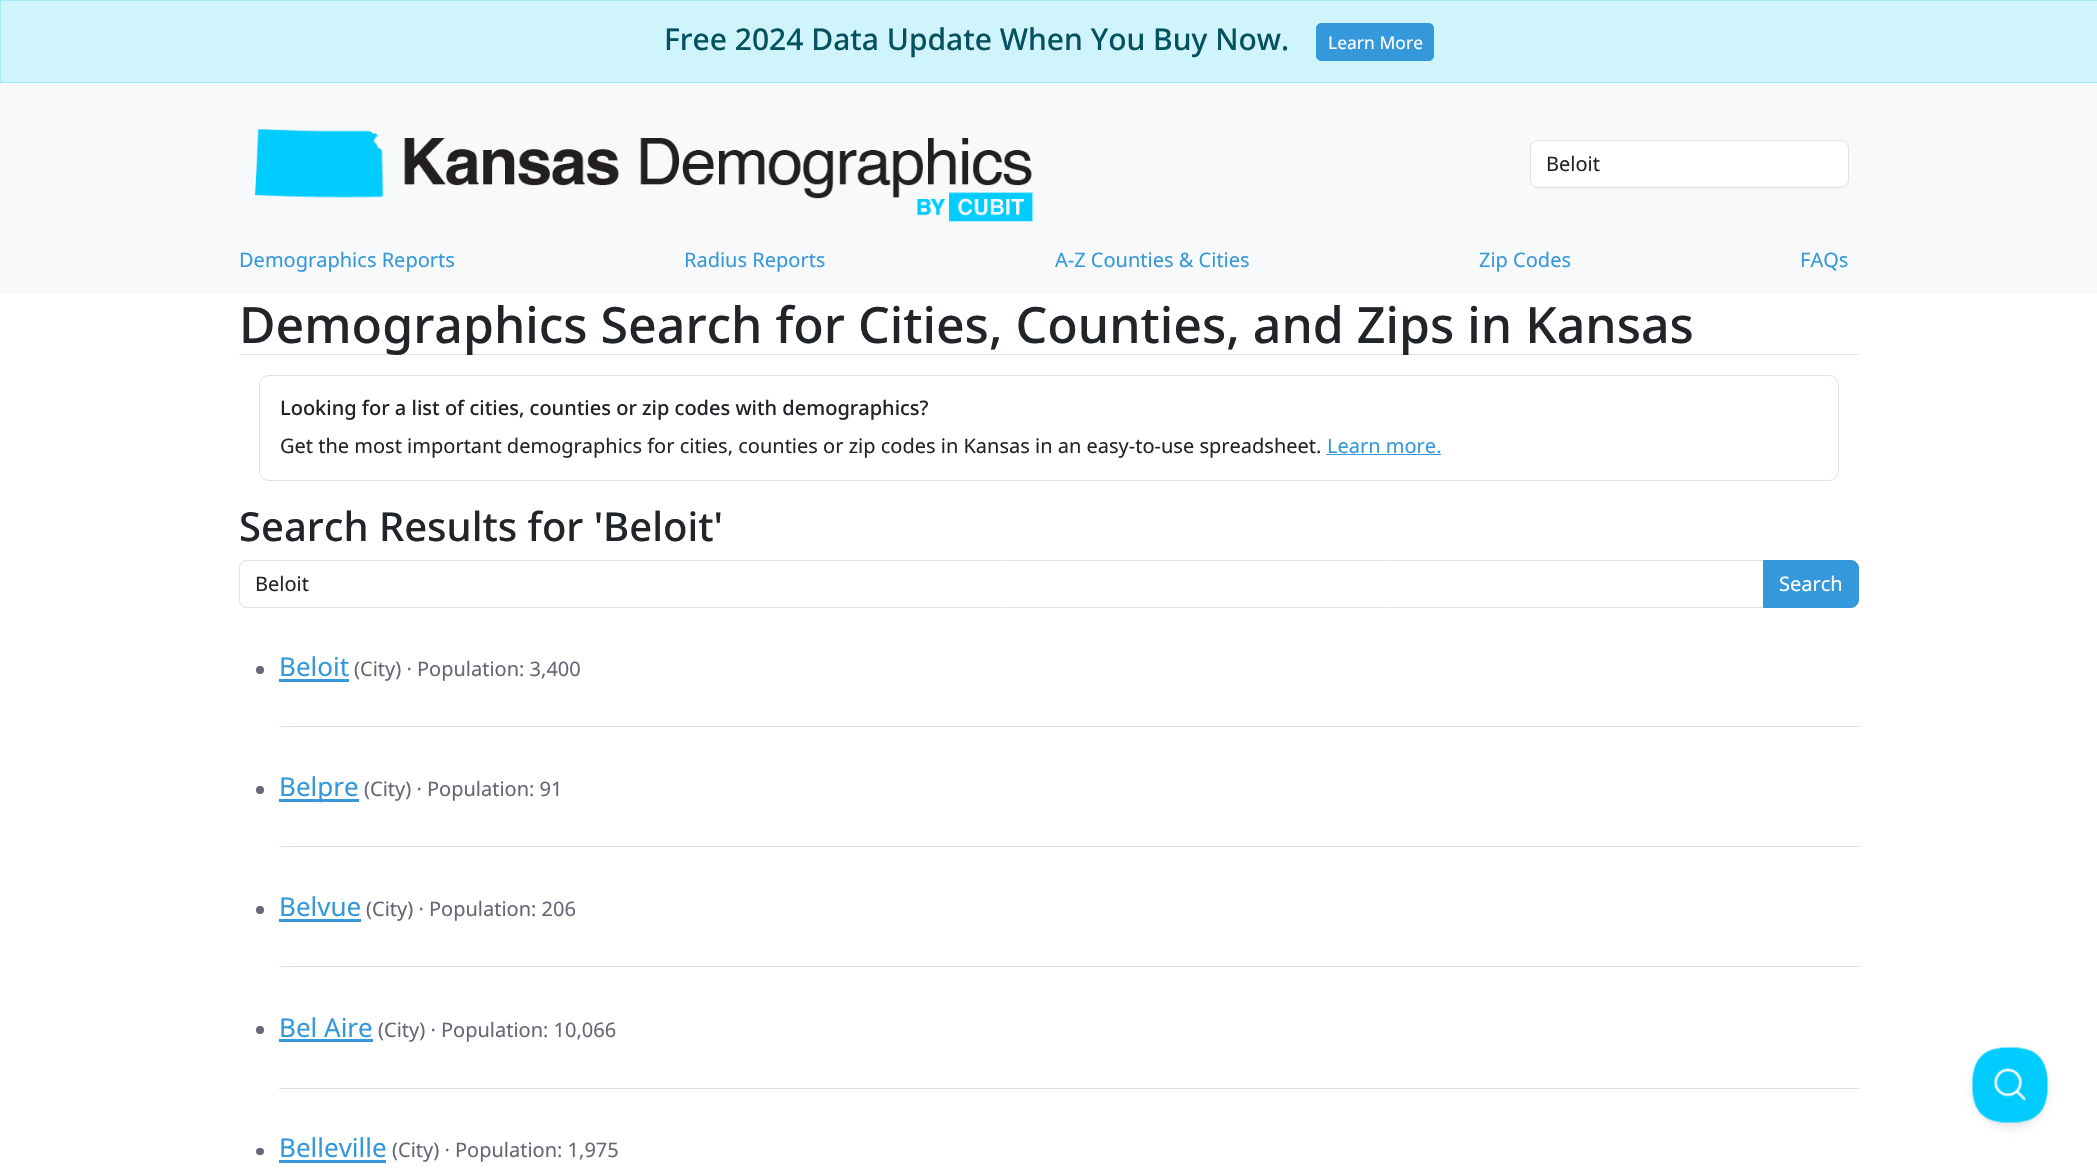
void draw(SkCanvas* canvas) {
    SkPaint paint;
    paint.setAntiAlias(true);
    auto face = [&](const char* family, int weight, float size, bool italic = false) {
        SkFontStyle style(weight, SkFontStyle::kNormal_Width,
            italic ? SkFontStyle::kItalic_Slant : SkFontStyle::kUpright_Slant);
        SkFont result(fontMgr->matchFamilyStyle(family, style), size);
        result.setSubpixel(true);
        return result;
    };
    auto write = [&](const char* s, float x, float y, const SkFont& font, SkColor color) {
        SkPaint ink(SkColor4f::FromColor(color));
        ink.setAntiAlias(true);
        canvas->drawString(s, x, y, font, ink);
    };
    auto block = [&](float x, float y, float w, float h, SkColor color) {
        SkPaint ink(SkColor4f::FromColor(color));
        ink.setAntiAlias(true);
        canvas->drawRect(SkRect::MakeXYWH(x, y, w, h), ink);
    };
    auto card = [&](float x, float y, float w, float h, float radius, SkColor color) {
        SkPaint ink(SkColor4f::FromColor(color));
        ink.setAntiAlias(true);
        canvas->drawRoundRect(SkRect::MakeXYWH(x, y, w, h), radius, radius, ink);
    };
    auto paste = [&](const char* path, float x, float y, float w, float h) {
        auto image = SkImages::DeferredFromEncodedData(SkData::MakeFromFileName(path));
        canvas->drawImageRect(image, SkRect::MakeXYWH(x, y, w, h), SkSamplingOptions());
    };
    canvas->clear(SK_ColorWHITE);
    paint.setColor(SkColorSetRGB(207, 244, 252));
    canvas->drawRect(SkRect::MakeXYWH(0.5f, 0.5f, 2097, 82), paint);
    paint.setStyle(SkPaint::kStroke_Style);
    paint.setStrokeWidth(1);
    paint.setColor(SkColorSetRGB(158, 234, 249));
    canvas->drawRect(SkRect::MakeXYWH(0.5f, 0.5f, 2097, 82), paint);
    auto kFont1 = face("Noto Sans", 500, 30);
    write("Free 2024 Data Update When You Buy Now.", 664, 50, kFont1, SkColorSetRGB(5, 81, 96));
    paint.setStyle(SkPaint::kFill_Style);
    paint.setColor(SkColorSetRGB(52, 152, 219));
    canvas->drawRoundRect(SkRect::MakeXYWH(1316.5f, 23.5f, 117, 37), 4.5f, 4.5f, paint);
    paint.setStyle(SkPaint::kStroke_Style);
    canvas->drawRoundRect(SkRect::MakeXYWH(1316.5f, 23.5f, 117, 37), 4.5f, 4.5f, paint);
    auto kFont2 = face("Noto Sans", 400, 17.5f);
    write("Learn More", 1328, 49, kFont2, SK_ColorWHITE);
    block(0, 83, 2097, 211, SkColorSetRGB(248, 249, 250));
    paste("pic1.png", 255, 129, 778, 93);
    card(1531, 141, 317, 45, 6, SK_ColorWHITE);
    paint.setColor(SkColorSetRGB(222, 226, 230));
    canvas->drawRoundRect(SkRect::MakeXYWH(1530.5f, 140.5f, 318, 47), 7.5f, 7.5f, paint);
    auto kFont3 = face("Noto Sans", 400, 20);
    write("Beloit", 1546, 171, kFont3, SkColorSetRGB(33, 37, 41));
    write("Demographics Reports", 239, 267, kFont3, SkColorSetRGB(52, 152, 219));
    write("Radius Reports", 684, 267, kFont3, SkColorSetRGB(52, 152, 219));
    write("A-Z Counties & Cities", 1055, 267, kFont3, SkColorSetRGB(52, 152, 219));
    write("Zip Codes", 1479, 267, kFont3, SkColorSetRGB(52, 152, 219));
    write("FAQs", 1800, 267, kFont3, SkColorSetRGB(52, 152, 219));
    block(239, 354, 1620, 1, SkColorSetRGB(222, 226, 230));
    auto kFont4 = face("Noto Sans", 500, 50);
    write("Demographics Search for Cities, Counties, and Zips in Kansas", 239, 343, kFont4, SkColorSetRGB(33, 37, 41));
    canvas->drawRoundRect(SkRect::MakeXYWH(259.5f, 375.5f, 1579, 105), 9.5f, 9.5f, paint);
    auto kFont5 = face("Noto Sans", 500, 20);
    write("Looking for a list of cities, counties or zip codes with demographics?", 280, 415, kFont5, SkColorSetRGB(33, 37, 41));
    write("Get the most important demographics for cities, counties or zip codes in Kansas in an easy-to-use spreadsheet.", 280, 453, kFont3, SkColorSetRGB(33, 37, 41));
    write("Learn more.", 1327, 453, kFont3, SkColorSetRGB(52, 152, 219));
    block(1326, 454, 115, 1, SkColorSetRGB(52, 152, 219));
    auto kFont6 = face("Noto Sans", 500, 40);
    write("Search Results for 'Beloit'", 239, 541, kFont6, SkColorSetRGB(33, 37, 41));
    canvas->drawPath(SkPathBuilder().moveTo(247, 560.5f).lineTo(1763.5f, 560.5f).lineTo(1763.5f, 607.5f).lineTo(247, 607.5f).cubicTo(243, 607.5f, 239.5f, 604, 239.5f, 600).lineTo(239.5f, 568).cubicTo(239.5f, 564, 243, 560.5f, 247, 560.5f).close().detach(), paint);
    write("Beloit", 255, 591, kFont3, SkColorSetRGB(33, 37, 41));
    paint.setStyle(SkPaint::kFill_Style);
    paint.setColor(SkColorSetRGB(52, 152, 219));
    canvas->drawPath(SkPathBuilder().moveTo(1763.5f, 560.5f).lineTo(1851, 560.5f).cubicTo(1855, 560.5f, 1858.5f, 564, 1858.5f, 568).lineTo(1858.5f, 600).cubicTo(1858.5f, 604, 1855, 607.5f, 1851, 607.5f).lineTo(1763.5f, 607.5f).close().detach(), paint);
    paint.setStyle(SkPaint::kStroke_Style);
    canvas->drawPath(SkPathBuilder().moveTo(1763.5f, 560.5f).lineTo(1851, 560.5f).cubicTo(1855, 560.5f, 1858.5f, 564, 1858.5f, 568).lineTo(1858.5f, 600).cubicTo(1858.5f, 604, 1855, 607.5f, 1851, 607.5f).lineTo(1763.5f, 607.5f).close().detach(), paint);
    write("Search", 1779, 591, kFont3, SK_ColorWHITE);
    block(279, 726, 1580, 1, SkColorSetRGB(221, 221, 238));
    paint.setStyle(SkPaint::kFill_Style);
    paint.setColor(SkColorSetRGB(102, 102, 119));
    canvas->drawCircle(260, 670, 4, paint);
    auto kFont7 = face("Noto Sans", 400, 26);
    write("Beloit", 279, 676, kFont7, SkColorSetRGB(52, 152, 219));
    block(279, 679, 70, 3, SkColorSetRGB(52, 152, 219));
    write("(City) · Population: 3,400", 354, 676, kFont3, SkColorSetRGB(102, 102, 119));
    block(279, 846, 1580, 1, SkColorSetRGB(221, 221, 238));
    canvas->drawCircle(260, 790, 4, paint);
    block(279, 799, 80, 3, SkColorSetRGB(52, 152, 219));
    write("Belpre", 279, 796, kFont7, SkColorSetRGB(52, 152, 219));
    write("(City) · Population: 91", 364, 796, kFont3, SkColorSetRGB(102, 102, 119));
    block(279, 966, 1580, 1, SkColorSetRGB(221, 221, 238));
    canvas->drawCircle(260, 910, 4, paint);
    write("Belvue", 279, 916, kFont7, SkColorSetRGB(52, 152, 219));
    block(279, 919, 82, 3, SkColorSetRGB(52, 152, 219));
    write("(City) · Population: 206", 366, 916, kFont3, SkColorSetRGB(102, 102, 119));
    block(279, 1088, 1580, 1, SkColorSetRGB(221, 221, 238));
    canvas->drawCircle(260, 1030, 4, paint);
    write("Bel Aire", 279, 1037, kFont7, SkColorSetRGB(52, 152, 219));
    block(279, 1039, 94, 3, SkColorSetRGB(52, 152, 219));
    write("(City) · Population: 10,066", 378, 1037, kFont3, SkColorSetRGB(102, 102, 119));
    card(256, 1148, 8, 7, 3.5f, SkColorSetRGB(102, 102, 119));
    write("Belleville", 279, 1157, kFont7, SkColorSetRGB(52, 152, 219));
    block(279, 1160, 107, 3, SkColorSetRGB(52, 152, 219));
    write("(City) · Population: 1,975", 392, 1157, kFont3, SkColorSetRGB(102, 102, 119));
    paint.setColor(SkColorSetARGB(26, 0, 0, 0));
    paint.setMaskFilter(SkMaskFilter::MakeBlur(kNormal_SkBlurStyle, 4.5f));
    canvas->drawRoundRect(SkRect::MakeXYWH(1973, 1053, 75, 75), 37.5f, 37.5f, paint);
    paint.setMaskFilter(nullptr);
    paste("pic2.png", 1972, 1047, 76, 76);
}
